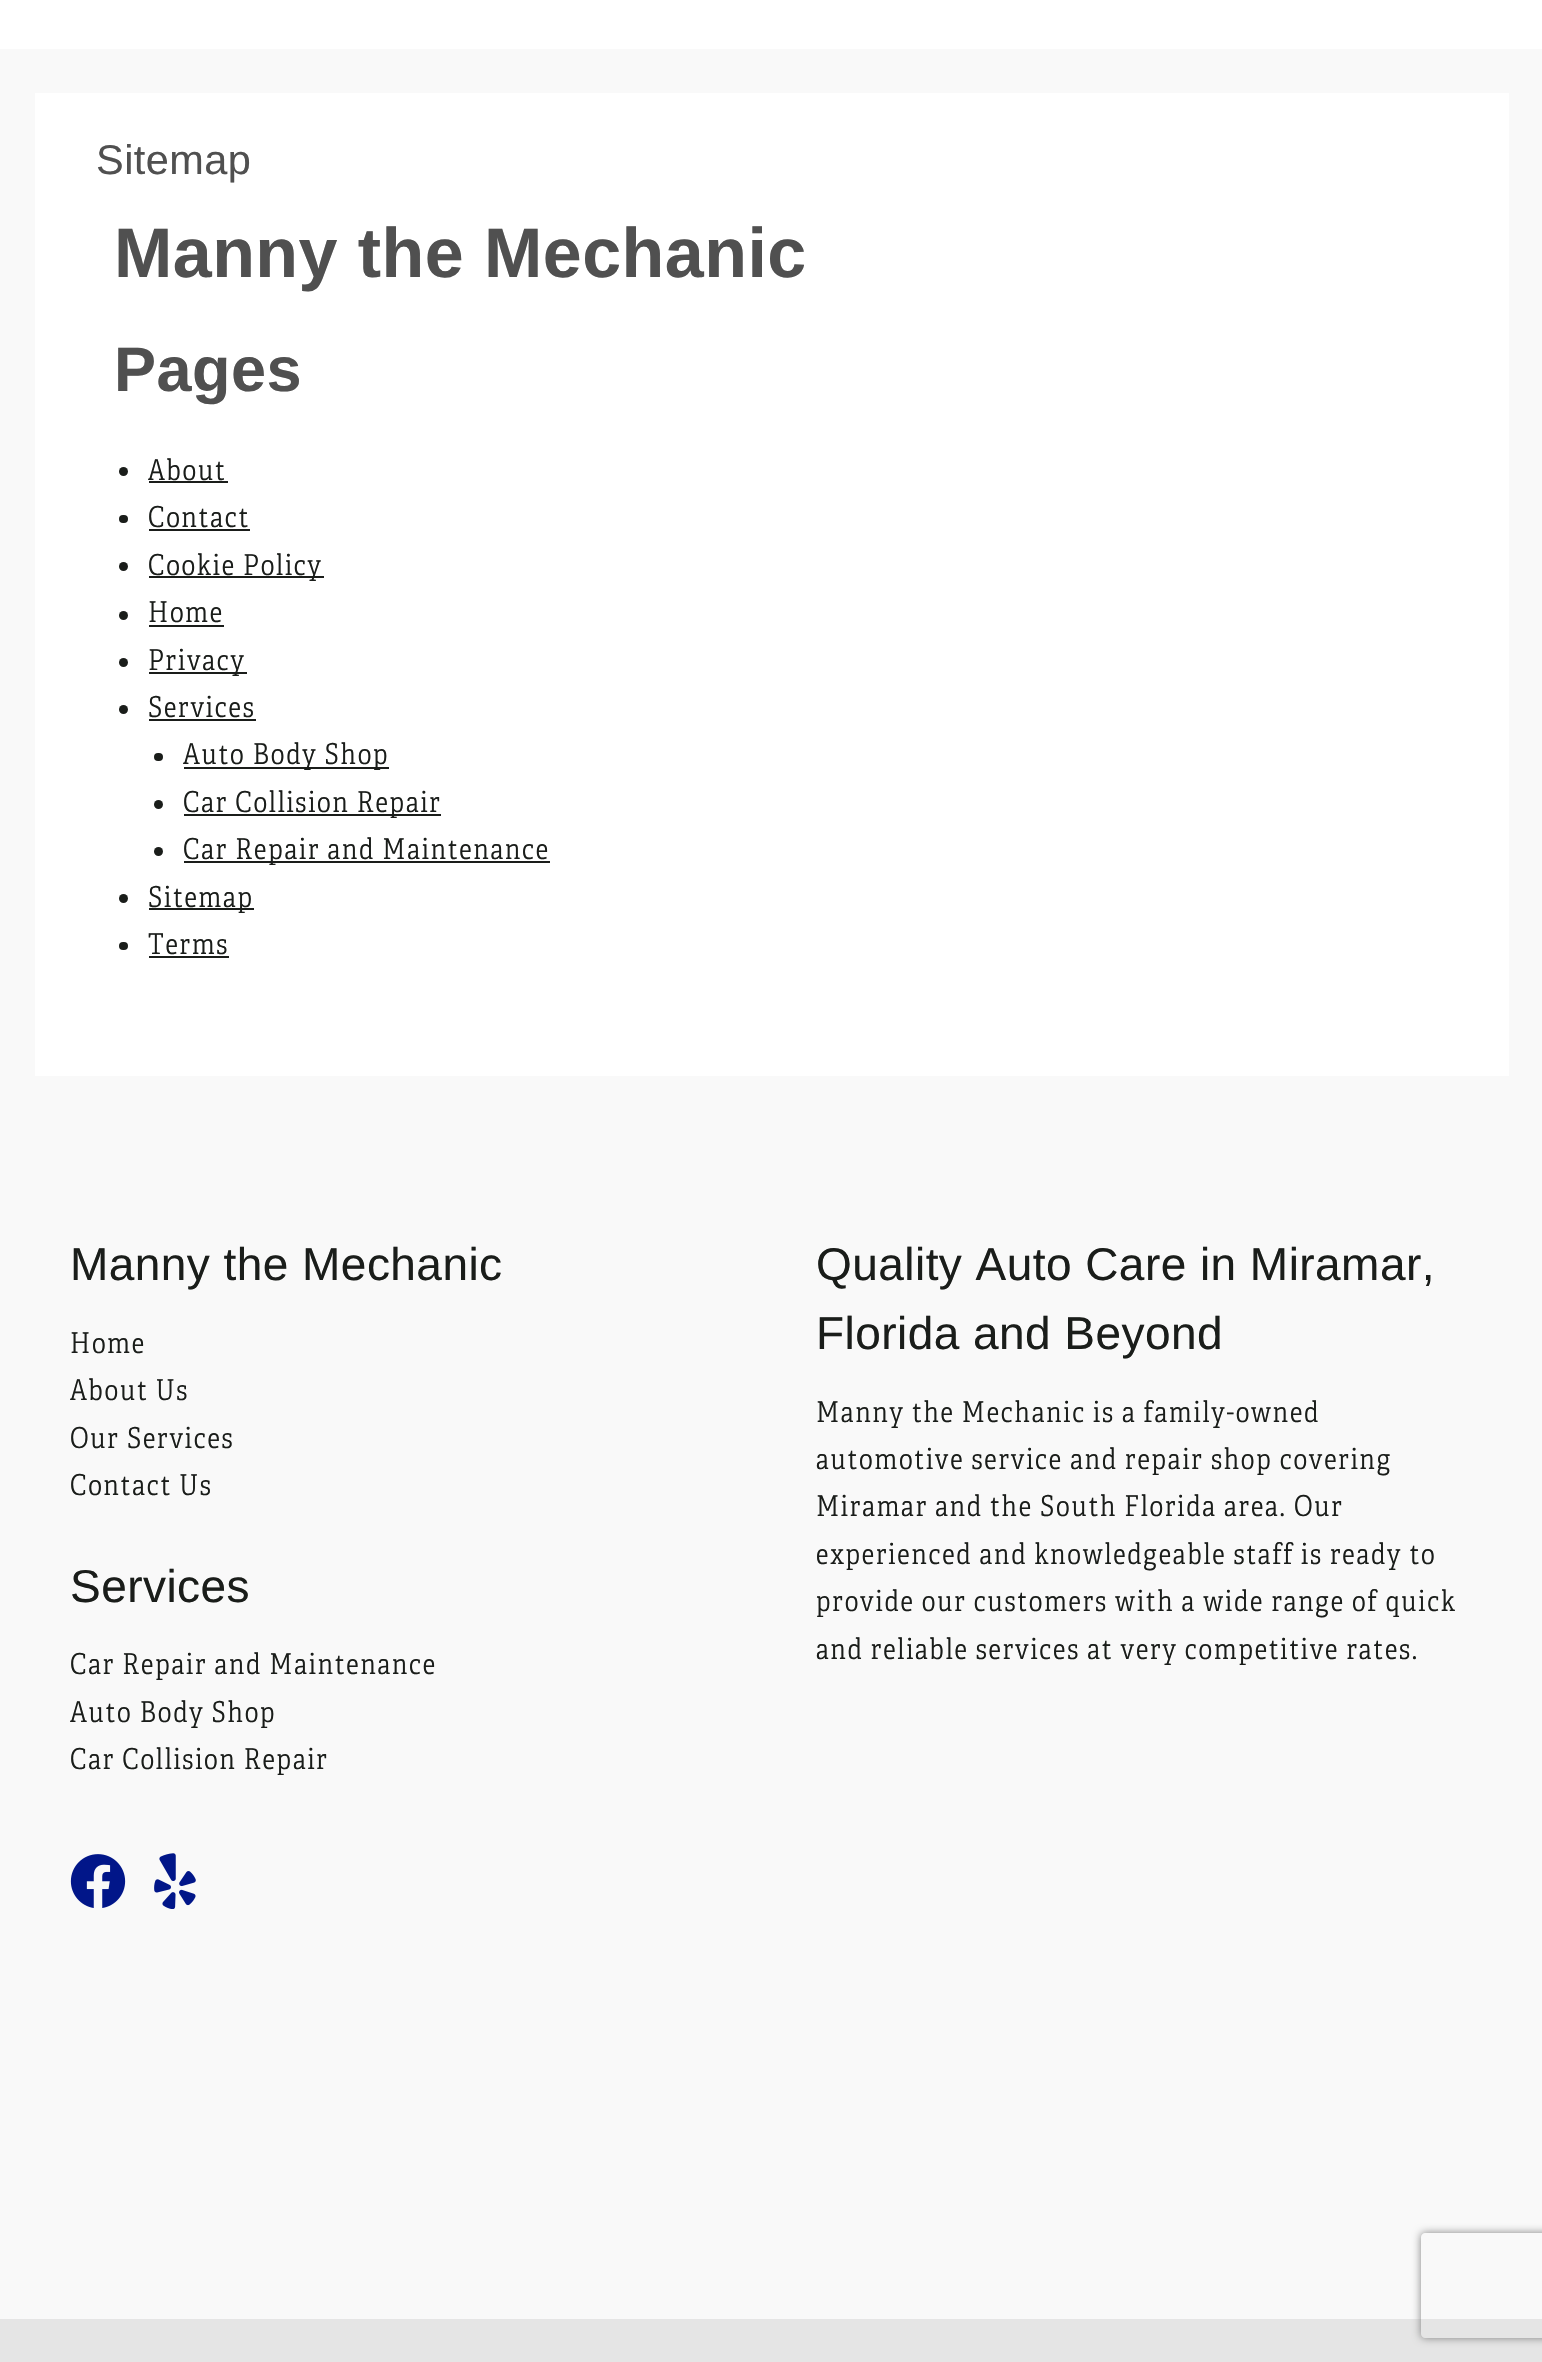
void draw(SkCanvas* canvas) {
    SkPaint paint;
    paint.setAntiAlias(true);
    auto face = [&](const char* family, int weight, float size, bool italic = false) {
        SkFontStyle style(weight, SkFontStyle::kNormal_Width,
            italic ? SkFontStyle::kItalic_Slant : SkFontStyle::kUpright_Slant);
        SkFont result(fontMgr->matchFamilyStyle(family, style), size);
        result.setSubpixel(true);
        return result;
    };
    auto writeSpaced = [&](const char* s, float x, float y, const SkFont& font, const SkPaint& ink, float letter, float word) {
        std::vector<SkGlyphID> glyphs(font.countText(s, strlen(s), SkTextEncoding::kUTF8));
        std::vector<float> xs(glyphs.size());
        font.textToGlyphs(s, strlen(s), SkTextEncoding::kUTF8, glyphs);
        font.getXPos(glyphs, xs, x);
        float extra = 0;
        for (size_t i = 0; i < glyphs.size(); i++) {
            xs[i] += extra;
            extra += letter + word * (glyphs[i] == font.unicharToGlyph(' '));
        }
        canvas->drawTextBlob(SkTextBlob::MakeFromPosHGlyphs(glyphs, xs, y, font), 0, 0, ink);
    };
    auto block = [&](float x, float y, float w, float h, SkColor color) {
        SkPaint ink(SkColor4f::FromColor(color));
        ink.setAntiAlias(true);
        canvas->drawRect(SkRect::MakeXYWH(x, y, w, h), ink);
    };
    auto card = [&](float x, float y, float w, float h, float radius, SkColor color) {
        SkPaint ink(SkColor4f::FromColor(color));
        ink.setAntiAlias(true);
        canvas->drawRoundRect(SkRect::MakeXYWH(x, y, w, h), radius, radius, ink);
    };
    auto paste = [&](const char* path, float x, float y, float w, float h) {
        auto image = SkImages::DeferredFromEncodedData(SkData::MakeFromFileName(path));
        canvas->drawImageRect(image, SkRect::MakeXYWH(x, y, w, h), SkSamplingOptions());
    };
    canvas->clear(SkColorSetRGB(249, 249, 249));
    block(0, 0, 1542, 49, SK_ColorWHITE);
    block(35, 93, 1474, 983, SK_ColorWHITE);
    auto kFont1 = face("Liberation Sans", 400, 41.5f);
    paint.setColor(SkColorSetRGB(80, 80, 80));
    writeSpaced("Sitemap", 96, 174, kFont1, paint, 0.45f, 0);
    auto kFont2 = face("Liberation Sans", 700, 70);
    writeSpaced("Manny the Mechanic", 114, 277, kFont2, paint, 0.45f, 0);
    auto kFont3 = face("Liberation Sans", 700, 63);
    writeSpaced("Pages", 114, 391, kFont3, paint, 0.45f, 0);
    paint.setColor(SkColorSetRGB(26, 29, 26));
    canvas->drawCircle(123.5f, 471.5f, 4.5f, paint);
    auto kFont4 = face("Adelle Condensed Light", 300, 28.75f);
    writeSpaced("About", 148, 480, kFont4, paint, 1.75f, 0);
    block(149, 481, 79, 2, SkColorSetRGB(26, 29, 26));
    card(119, 515, 9, 8, 4, SkColorSetRGB(26, 29, 26));
    writeSpaced("Contact", 148, 527, kFont4, paint, 1.75f, 0);
    block(149, 529, 101, 2, SkColorSetRGB(26, 29, 26));
    canvas->drawCircle(123.5f, 566.5f, 4.5f, paint);
    block(149, 576, 175, 2, SkColorSetRGB(26, 29, 26));
    writeSpaced("Cookie Policy", 148, 575, kFont4, paint, 1.75f, 0);
    canvas->drawCircle(123.5f, 615.5f, 4.5f, paint);
    writeSpaced("Home", 148, 622, kFont4, paint, 1.75f, 0);
    block(149, 625, 75, 2, SkColorSetRGB(26, 29, 26));
    canvas->drawCircle(123.5f, 662.5f, 4.5f, paint);
    block(149, 672, 98, 2, SkColorSetRGB(26, 29, 26));
    writeSpaced("Privacy", 148, 670, kFont4, paint, 1.75f, 0);
    canvas->drawCircle(123.5f, 709.5f, 4.5f, paint);
    writeSpaced("Services", 148, 717, kFont4, paint, 1.75f, 0);
    block(149, 719, 107, 2, SkColorSetRGB(26, 29, 26));
    card(154, 753, 9, 8, 4, SkColorSetRGB(26, 29, 26));
    block(184, 767, 205, 2, SkColorSetRGB(26, 29, 26));
    writeSpaced("Auto Body Shop", 183, 764, kFont4, paint, 1.75f, 0);
    canvas->drawCircle(158.5f, 804.5f, 4.5f, paint);
    block(184, 814, 257, 2, SkColorSetRGB(26, 29, 26));
    writeSpaced("Car Collision Repair", 183, 812, kFont4, paint, 1.75f, 0);
    canvas->drawCircle(158.5f, 851.5f, 4.5f, paint);
    block(184, 861, 366, 2, SkColorSetRGB(26, 29, 26));
    writeSpaced("Car Repair and Maintenance", 183, 859, kFont4, paint, 1.75f, 0);
    canvas->drawCircle(123.5f, 898.5f, 4.5f, paint);
    block(149, 908, 105, 2, SkColorSetRGB(26, 29, 26));
    writeSpaced("Sitemap", 148, 907, kFont4, paint, 1.75f, 0);
    card(119, 942, 9, 8, 4, SkColorSetRGB(26, 29, 26));
    writeSpaced("Terms", 148, 954, kFont4, paint, 1.75f, 0);
    block(149, 956, 80, 2, SkColorSetRGB(26, 29, 26));
    auto kFont5 = face("Liberation Sans", 400, 46);
    writeSpaced("Manny the Mechanic", 70, 1280, kFont5, paint, 0.45f, 0);
    writeSpaced("Home", 70, 1353, kFont4, paint, 1.75f, 0);
    writeSpaced("About Us", 70, 1400, kFont4, paint, 1.75f, 0);
    writeSpaced("Our Services", 70, 1448, kFont4, paint, 1.75f, 0);
    writeSpaced("Contact Us", 70, 1495, kFont4, paint, 1.75f, 0);
    writeSpaced("Services", 70, 1602, kFont5, paint, 0.45f, 0);
    writeSpaced("Car Repair and Maintenance", 70, 1674, kFont4, paint, 1.75f, 0);
    writeSpaced("Auto Body Shop", 70, 1722, kFont4, paint, 1.75f, 0);
    writeSpaced("Car Collision Repair", 70, 1769, kFont4, paint, 1.75f, 0);
    paste("pic1.png", 70, 1854, 56, 54);
    paste("pic2.png", 154, 1853, 42, 56);
    writeSpaced("Quality Auto Care in Miramar,", 816, 1280, kFont5, paint, 0.45f, 0);
    writeSpaced("Florida and Beyond", 816, 1349, kFont5, paint, 0.45f, 0);
    writeSpaced("Manny the Mechanic is a family-owned", 816, 1422, kFont4, paint, 1.75f, 0);
    writeSpaced("automotive service and repair shop covering", 816, 1469, kFont4, paint, 1.75f, 0);
    writeSpaced("Miramar and the South Florida area. Our", 816, 1516, kFont4, paint, 1.75f, 0);
    writeSpaced("experienced and knowledgeable staff is ready to", 816, 1564, kFont4, paint, 1.75f, 0);
    writeSpaced("provide our customers with a wide range of quick", 816, 1611, kFont4, paint, 1.75f, 0);
    writeSpaced("and reliable services at very competitive rates.", 816, 1659, kFont4, paint, 1.75f, 0);
    block(0, 2319, 1542, 43, SkColorSetRGB(229, 229, 229));
    canvas->save();
    canvas->clipPath(SkPathBuilder(SkPathFillType::kEvenOdd).moveTo(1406, 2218).lineTo(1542, 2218).lineTo(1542, 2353).lineTo(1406, 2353).close().moveTo(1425, 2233).lineTo(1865, 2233).cubicTo(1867, 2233, 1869, 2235, 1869, 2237).lineTo(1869, 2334).cubicTo(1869, 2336, 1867, 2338, 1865, 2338).lineTo(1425, 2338).cubicTo(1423, 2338, 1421, 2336, 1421, 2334).lineTo(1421, 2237).cubicTo(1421, 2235, 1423, 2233, 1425, 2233).close().detach(), true);
    paint.setColor(SkColorSetRGB(128, 128, 128));
    paint.setMaskFilter(SkMaskFilter::MakeBlur(kNormal_SkBlurStyle, 4.5f));
    canvas->drawRoundRect(SkRect::MakeXYWH(1421, 2233, 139, 105), 4, 4, paint);
    paint.setMaskFilter(nullptr);
    canvas->restore();
}
